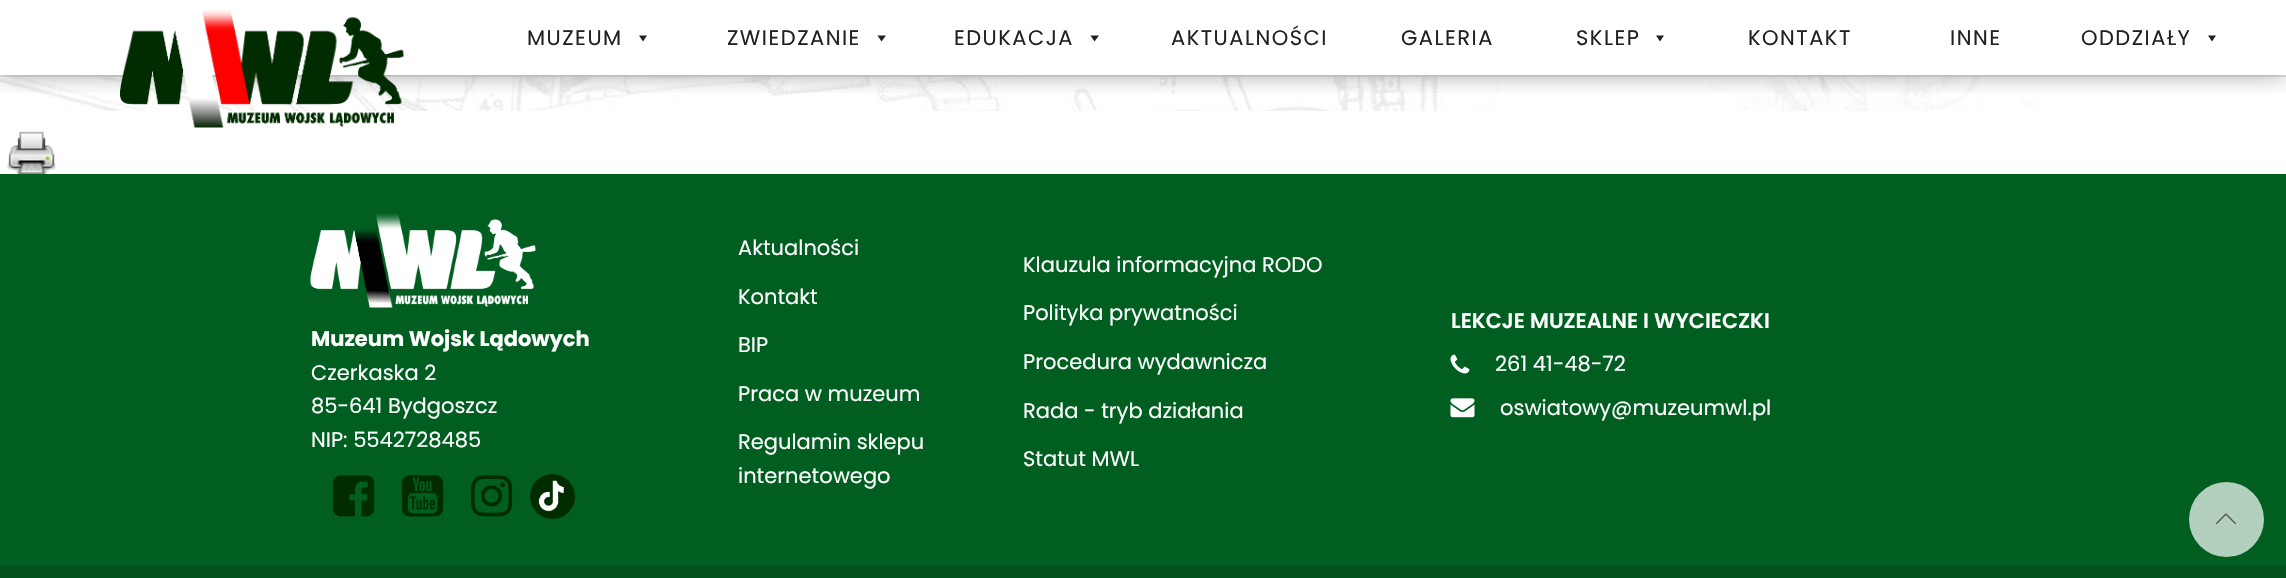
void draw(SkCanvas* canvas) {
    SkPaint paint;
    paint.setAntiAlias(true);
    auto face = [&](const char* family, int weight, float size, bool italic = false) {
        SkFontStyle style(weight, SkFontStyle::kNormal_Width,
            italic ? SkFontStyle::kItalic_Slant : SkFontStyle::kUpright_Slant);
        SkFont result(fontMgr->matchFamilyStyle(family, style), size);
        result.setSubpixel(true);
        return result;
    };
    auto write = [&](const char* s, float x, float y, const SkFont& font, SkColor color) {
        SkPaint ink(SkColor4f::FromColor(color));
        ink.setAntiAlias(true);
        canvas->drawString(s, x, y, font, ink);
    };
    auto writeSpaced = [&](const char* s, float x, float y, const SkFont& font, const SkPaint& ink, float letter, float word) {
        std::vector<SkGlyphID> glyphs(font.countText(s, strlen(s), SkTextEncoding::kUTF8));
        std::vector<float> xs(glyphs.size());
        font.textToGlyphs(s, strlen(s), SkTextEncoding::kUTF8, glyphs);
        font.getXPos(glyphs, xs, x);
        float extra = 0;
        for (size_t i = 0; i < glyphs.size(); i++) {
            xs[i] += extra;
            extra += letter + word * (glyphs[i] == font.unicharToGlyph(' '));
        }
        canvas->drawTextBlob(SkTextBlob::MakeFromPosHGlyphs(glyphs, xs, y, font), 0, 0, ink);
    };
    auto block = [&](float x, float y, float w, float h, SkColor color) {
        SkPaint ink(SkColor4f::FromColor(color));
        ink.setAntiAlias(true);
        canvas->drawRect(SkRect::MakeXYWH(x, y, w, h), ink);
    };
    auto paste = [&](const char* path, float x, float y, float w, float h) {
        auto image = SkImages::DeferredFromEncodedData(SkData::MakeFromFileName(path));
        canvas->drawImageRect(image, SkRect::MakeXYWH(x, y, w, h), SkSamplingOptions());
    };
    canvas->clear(SK_ColorWHITE);
    block(0, 75, 2286, 2, SkColorSetRGB(230, 230, 230));
    paste("pic2.png", 0, 77, 2039, 34);
    canvas->save();
    canvas->clipRect(SkRect::MakeXYWH(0, 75, 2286, 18));
    paint.setColor(SkColorSetARGB(102, 25, 25, 25));
    paint.setMaskFilter(SkMaskFilter::MakeBlur(kNormal_SkBlurStyle, 11));
    canvas->drawRect(SkRect::MakeXYWH(0, 0, 2286, 75), paint);
    paint.setMaskFilter(nullptr);
    canvas->restore();
    paste("pic1.png", 120, 10, 284, 118);
    auto kFont1 = face("Poppins", 400, 21);
    paint.setColor(SkColorSetRGB(33, 33, 33));
    writeSpaced("MUZEUM", 527, 45, kFont1, paint, 1.5f, 0);
    canvas->drawPath(SkPathBuilder().moveTo(647, 35.5f).lineTo(643, 41.5f).lineTo(639, 35.5f).close().detach(), paint);
    writeSpaced("ZWIEDZANIE", 727, 45, kFont1, paint, 1.5f, 0);
    canvas->drawPath(SkPathBuilder().moveTo(886, 35.5f).lineTo(881.5f, 41.5f).lineTo(877.5f, 35.5f).close().detach(), paint);
    writeSpaced("EDUKACJA", 954, 45, kFont1, paint, 1.5f, 0);
    canvas->drawPath(SkPathBuilder().moveTo(1099, 35.5f).lineTo(1094.5f, 41.5f).lineTo(1090.5f, 35.5f).close().detach(), paint);
    writeSpaced("AKTUALNOŚCI", 1171, 45, kFont1, paint, 1.5f, 0);
    writeSpaced("GALERIA", 1401, 45, kFont1, paint, 1.5f, 0);
    writeSpaced("SKLEP", 1576, 45, kFont1, paint, 1.5f, 0);
    canvas->drawPath(SkPathBuilder().moveTo(1664, 35.5f).lineTo(1660, 41.5f).lineTo(1656, 35.5f).close().detach(), paint);
    writeSpaced("KONTAKT", 1748, 45, kFont1, paint, 1.5f, 0);
    writeSpaced("INNE", 1950, 45, kFont1, paint, 1.5f, 0);
    writeSpaced("ODDZIAŁY", 2081, 45, kFont1, paint, 1.5f, 0);
    canvas->drawPath(SkPathBuilder().moveTo(2216, 35.5f).lineTo(2212, 41.5f).lineTo(2208, 35.5f).close().detach(), paint);
    paste("pic3.png", 7, 131, 49, 43);
    block(0, 174, 2286, 392, SkColorSetRGB(0, 94, 32));
    paste("pic4.png", 310, 213, 226, 95);
    auto kFont2 = face("Poppins", 700, 21);
    write("Muzeum Wojsk Lądowych", 311, 346, kFont2, SK_ColorWHITE);
    write("Czerkaska 2", 311, 380, kFont1, SK_ColorWHITE);
    write("85-641 Bydgoszcz", 311, 413, kFont1, SK_ColorWHITE);
    write("NIP: 5542728485", 311, 447, kFont1, SK_ColorWHITE);
    paste("pic5.png", 333, 475, 42, 42);
    paste("pic6.png", 402, 475, 42, 42);
    paste("pic7.png", 471, 475, 42, 42);
    paint.setColor(SkColorSetRGB(1, 44, 0));
    canvas->drawCircle(552.5f, 496.5f, 22.5f, paint);
    paste("pic8.png", 538, 480, 26, 32);
    write("Aktualności", 738, 255, kFont1, SK_ColorWHITE);
    write("Kontakt", 738, 304, kFont1, SK_ColorWHITE);
    write("BIP", 738, 352, kFont1, SK_ColorWHITE);
    write("Praca w muzeum", 738, 401, kFont1, SK_ColorWHITE);
    write("Regulamin sklepu", 738, 449, kFont1, SK_ColorWHITE);
    write("internetowego", 738, 483, kFont1, SK_ColorWHITE);
    write("Klauzula informacyjna RODO", 1023, 272, kFont1, SK_ColorWHITE);
    write("Polityka prywatności", 1023, 320, kFont1, SK_ColorWHITE);
    write("Procedura wydawnicza", 1023, 369, kFont1, SK_ColorWHITE);
    write("Rada - tryb działania", 1023, 418, kFont1, SK_ColorWHITE);
    write("Statut MWL", 1023, 466, kFont1, SK_ColorWHITE);
    auto kFont3 = face("Poppins", 600, 21);
    write("LEKCJE MUZEALNE I WYCIECZKI", 1451, 328, kFont3, SK_ColorWHITE);
    paste("pic9.png", 1450, 354, 20, 20);
    write("261 41-48-72", 1495, 371, kFont1, SK_ColorWHITE);
    paste("pic10.png", 1450, 398, 25, 20);
    write("oswiatowy@muzeumwl.pl", 1500, 415, kFont1, SK_ColorWHITE);
    paint.setColor(SkColorSetARGB(179, 255, 255, 255));
    canvas->drawCircle(2226.5f, 519.5f, 37.5f, paint);
    paste("pic11.png", 2216, 513, 20, 12);
    block(0, 566, 2286, 12, SkColorSetRGB(2, 80, 28));
}
